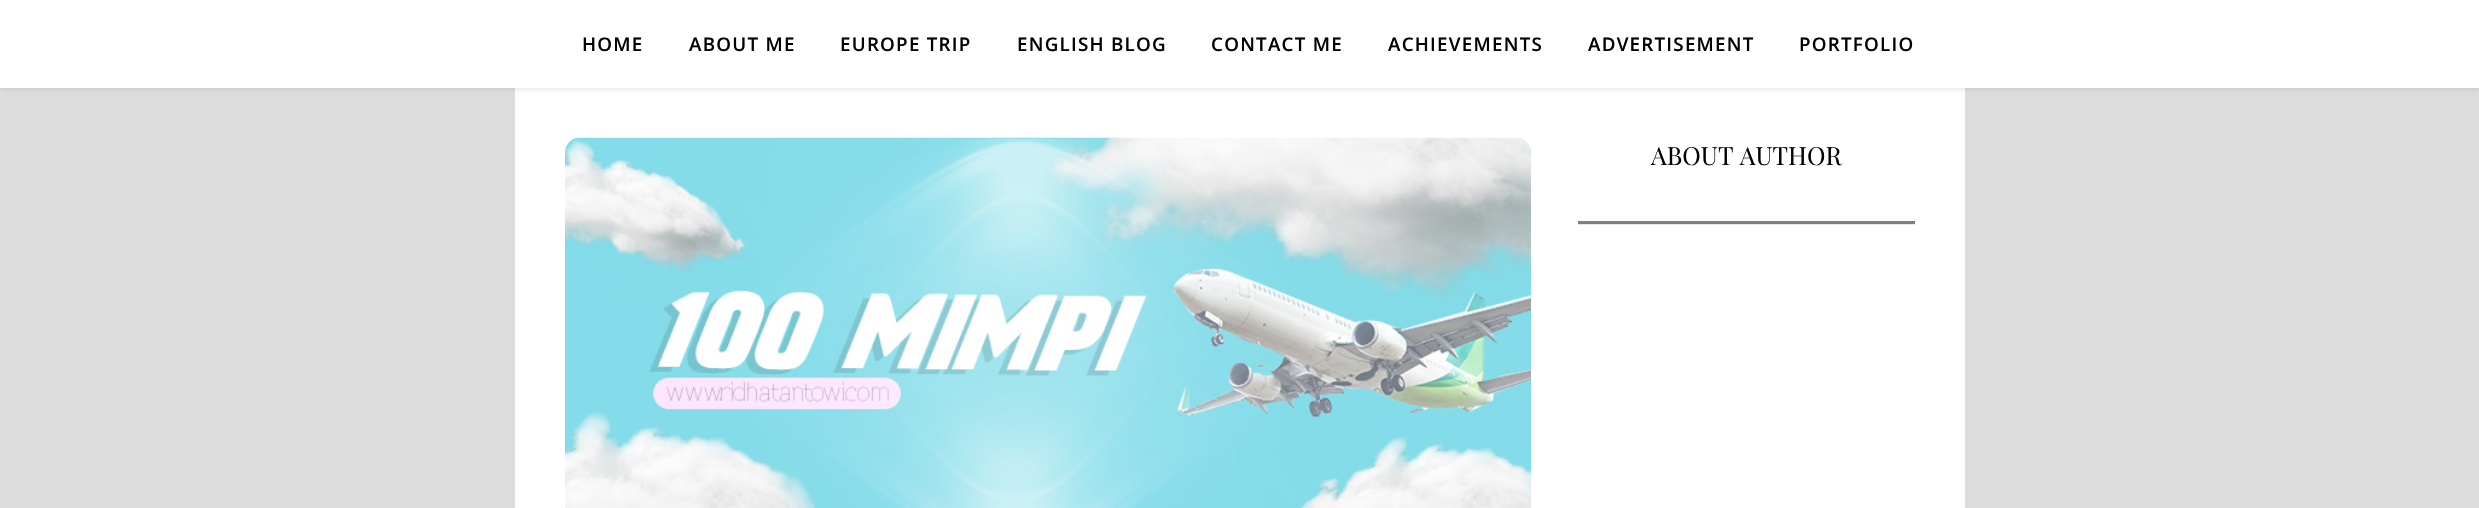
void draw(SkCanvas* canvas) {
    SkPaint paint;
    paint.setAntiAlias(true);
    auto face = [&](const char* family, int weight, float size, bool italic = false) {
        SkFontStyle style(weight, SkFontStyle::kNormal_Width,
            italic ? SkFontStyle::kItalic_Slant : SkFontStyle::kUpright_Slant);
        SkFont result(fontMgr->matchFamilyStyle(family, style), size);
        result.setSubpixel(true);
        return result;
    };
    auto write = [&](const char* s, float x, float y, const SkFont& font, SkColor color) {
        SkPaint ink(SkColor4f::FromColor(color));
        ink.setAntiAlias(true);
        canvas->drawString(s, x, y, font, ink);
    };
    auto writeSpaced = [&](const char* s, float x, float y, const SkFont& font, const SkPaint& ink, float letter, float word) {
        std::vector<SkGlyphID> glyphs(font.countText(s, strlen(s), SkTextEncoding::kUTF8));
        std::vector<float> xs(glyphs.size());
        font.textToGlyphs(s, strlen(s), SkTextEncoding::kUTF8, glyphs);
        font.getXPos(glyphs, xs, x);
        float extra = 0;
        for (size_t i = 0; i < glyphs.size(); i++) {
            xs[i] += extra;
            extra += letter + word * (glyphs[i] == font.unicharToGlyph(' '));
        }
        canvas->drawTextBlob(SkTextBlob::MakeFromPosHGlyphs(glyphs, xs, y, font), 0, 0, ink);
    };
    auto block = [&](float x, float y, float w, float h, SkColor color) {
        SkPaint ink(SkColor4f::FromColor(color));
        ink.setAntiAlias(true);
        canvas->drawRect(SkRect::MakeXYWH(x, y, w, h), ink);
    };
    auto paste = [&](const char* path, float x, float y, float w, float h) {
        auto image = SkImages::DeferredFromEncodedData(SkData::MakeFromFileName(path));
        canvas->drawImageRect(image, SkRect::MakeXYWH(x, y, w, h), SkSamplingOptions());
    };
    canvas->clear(SkColorSetRGB(221, 221, 221));
    block(515, 88, 1450, 420, SK_ColorWHITE);
    paint.setColor(SkColorSetARGB(26, 0, 0, 0));
    paint.setMaskFilter(SkMaskFilter::MakeBlur(kNormal_SkBlurStyle, 3));
    canvas->drawRect(SkRect::MakeXYWH(0, 1, 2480, 88), paint);
    paint.setMaskFilter(nullptr);
    block(0, 0, 2479, 88, SK_ColorWHITE);
    auto kFont1 = face("Open Sans", 600, 18.75f);
    paint.setColor(SkColorSetRGB(3, 3, 3));
    writeSpaced("HOME", 582, 51, kFont1, paint, 1.25f, 0);
    writeSpaced("ABOUT ME", 689, 51, kFont1, paint, 1.25f, 0);
    writeSpaced("EUROPE TRIP", 840, 51, kFont1, paint, 1.25f, 0);
    writeSpaced("ENGLISH BLOG", 1017, 51, kFont1, paint, 1.25f, 0);
    writeSpaced("CONTACT ME", 1211, 51, kFont1, paint, 1.25f, 0);
    writeSpaced("ACHIEVEMENTS", 1388, 51, kFont1, paint, 1.25f, 0);
    writeSpaced("ADVERTISEMENT", 1588, 51, kFont1, paint, 1.25f, 0);
    writeSpaced("PORTFOLIO", 1799, 51, kFont1, paint, 1.25f, 0);
    paste("pic1.png", 565, 137, 967, 371);
    auto kFont2 = face("Playfair Display", 400, 25);
    write("ABOUT AUTHOR", 1651, 165, kFont2, SkColorSetRGB(3, 3, 3));
    block(1578, 224, 337, 1, SkColorSetRGB(232, 232, 232));
    block(1578, 221, 337, 3, SkColorSetRGB(128, 128, 128));
}
